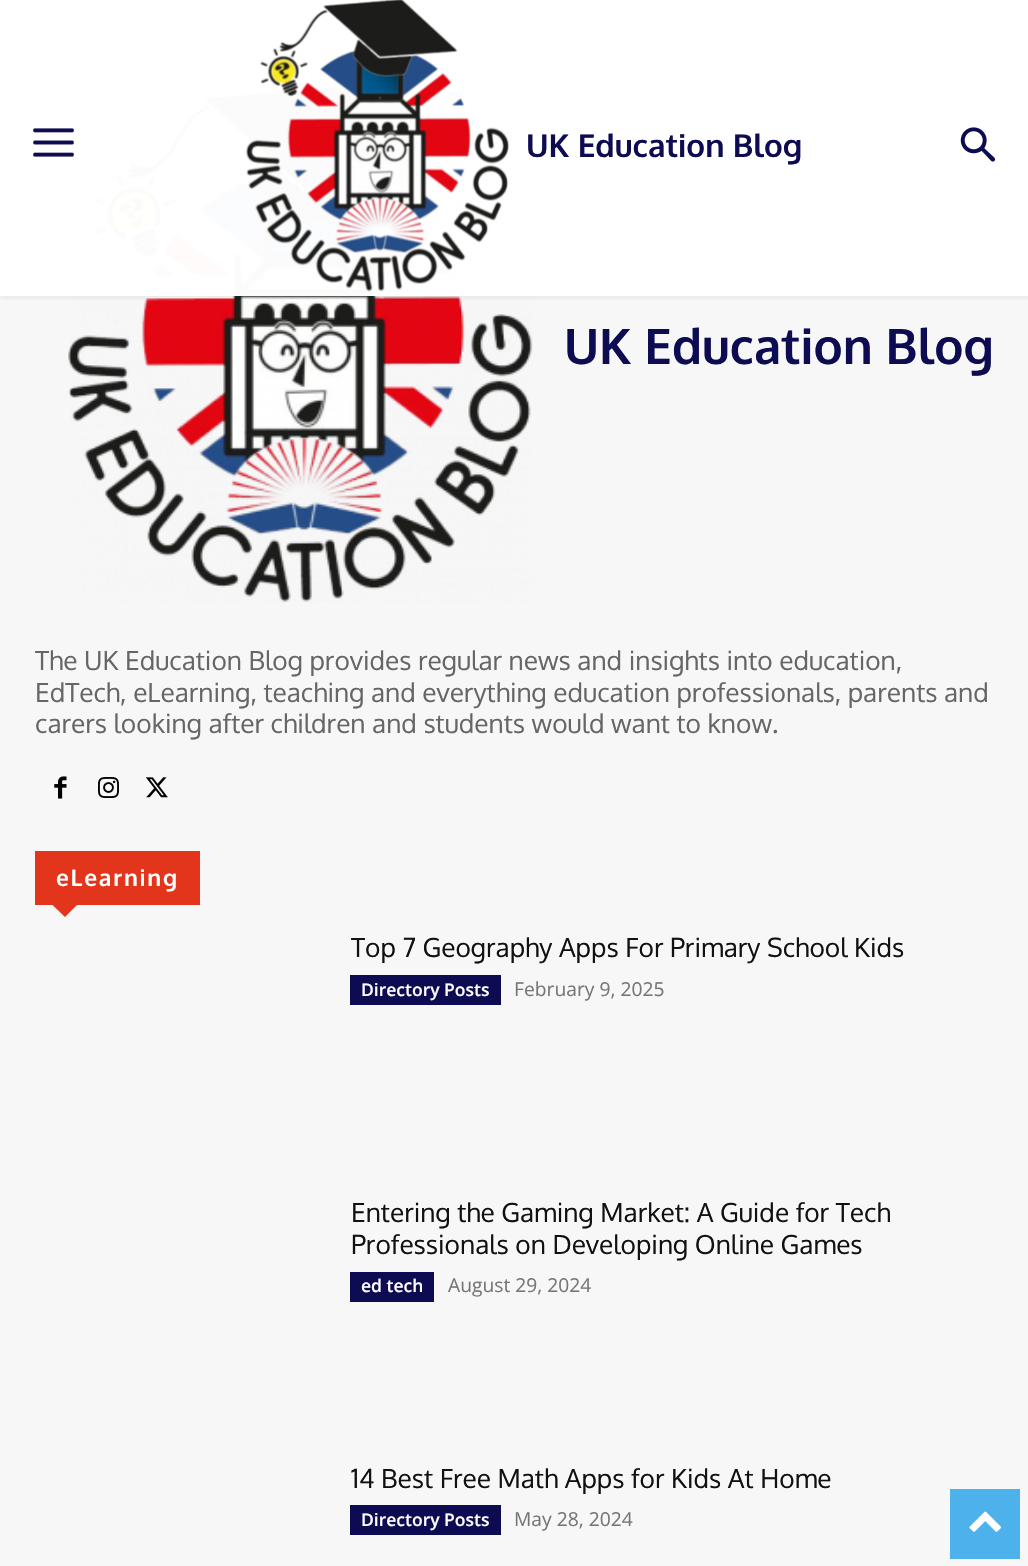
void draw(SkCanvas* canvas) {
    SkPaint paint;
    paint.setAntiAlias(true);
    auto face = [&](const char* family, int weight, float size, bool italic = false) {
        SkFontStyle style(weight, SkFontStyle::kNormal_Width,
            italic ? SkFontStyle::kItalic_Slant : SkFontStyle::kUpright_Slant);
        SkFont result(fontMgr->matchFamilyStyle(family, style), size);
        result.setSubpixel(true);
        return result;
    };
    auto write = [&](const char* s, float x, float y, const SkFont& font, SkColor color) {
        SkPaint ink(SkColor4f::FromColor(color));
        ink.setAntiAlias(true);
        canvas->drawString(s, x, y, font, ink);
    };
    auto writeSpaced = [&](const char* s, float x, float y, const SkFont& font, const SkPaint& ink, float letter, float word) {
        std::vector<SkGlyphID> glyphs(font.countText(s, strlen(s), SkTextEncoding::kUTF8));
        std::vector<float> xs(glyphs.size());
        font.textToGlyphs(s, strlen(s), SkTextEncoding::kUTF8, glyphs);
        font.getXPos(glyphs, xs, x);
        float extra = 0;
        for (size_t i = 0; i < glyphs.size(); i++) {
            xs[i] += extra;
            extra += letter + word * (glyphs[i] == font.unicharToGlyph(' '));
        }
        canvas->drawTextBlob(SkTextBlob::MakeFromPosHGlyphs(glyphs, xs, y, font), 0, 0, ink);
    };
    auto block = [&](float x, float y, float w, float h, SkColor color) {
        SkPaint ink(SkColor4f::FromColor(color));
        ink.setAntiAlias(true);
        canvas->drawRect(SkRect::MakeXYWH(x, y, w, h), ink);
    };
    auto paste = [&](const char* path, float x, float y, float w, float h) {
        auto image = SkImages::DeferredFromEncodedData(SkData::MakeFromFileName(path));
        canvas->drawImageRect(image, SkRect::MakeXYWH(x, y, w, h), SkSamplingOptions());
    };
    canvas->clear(SK_ColorWHITE);
    block(0, 30, 1028, 1536, SkColorSetRGB(247, 247, 247));
    paste("pic4.png", 68, 85, 465, 517);
    block(0, 30, 1028, 266, SkColorSetARGB(250, 255, 255, 255));
    paste("pic1.png", 33, 128, 41, 29);
    paste("pic2.png", 245, 0, 264, 292);
    paste("pic3.png", 960, 127, 36, 35);
    canvas->save();
    canvas->clipRect(SkRect::MakeXYWH(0, 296, 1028, 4));
    paint.setColor(SkColorSetARGB(13, 0, 0, 0));
    paint.setMaskFilter(SkMaskFilter::MakeBlur(kNormal_SkBlurStyle, 2.5f));
    canvas->drawRect(SkRect::MakeXYWH(0, 4, 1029, 295), paint);
    paint.setMaskFilter(nullptr);
    canvas->restore();
    auto kFont1 = face("Oxygen", 700, 31.5f);
    write("UK Education Blog", 526, 157, kFont1, SkColorSetRGB(13, 11, 82));
    auto kFont2 = face("Oxygen", 700, 49);
    write("UK Education Blog", 564, 364, kFont2, SkColorSetRGB(13, 11, 82));
    auto kFont3 = face("Oxygen", 400, 26.25f);
    write("The UK Education Blog provides regular news and insights into education,", 35, 670, kFont3, SkColorSetRGB(102, 102, 102));
    write("EdTech, eLearning, teaching and everything education professionals, parents and", 35, 702, kFont3, SkColorSetRGB(102, 102, 102));
    write("carers looking after children and students would want to know.", 35, 733, kFont3, SkColorSetRGB(102, 102, 102));
    paste("pic5.png", 54, 776, 13, 23);
    paste("pic6.png", 98, 777, 21, 21);
    paste("pic7.png", 146, 777, 22, 21);
    block(35, 851, 165, 54, SkColorSetRGB(226, 53, 27));
    auto kFont4 = face("Oxygen", 700, 22.75f);
    paint.setColor(SK_ColorWHITE);
    writeSpaced("eLearning", 56, 886, kFont4, paint, 1.75f, 0);
    paint.setColor(SkColorSetRGB(226, 53, 27));
    canvas->drawPath(SkPathBuilder().moveTo(52.5f, 905).lineTo(77, 905).lineTo(65, 917).close().detach(), paint);
    write("Top 7 Geography Apps For Primary School Kids", 351, 957, kFont3, SkColorSetRGB(17, 17, 17));
    block(350, 975, 151, 30, SkColorSetRGB(13, 11, 82));
    auto kFont5 = face("Open Sans", 600, 17.5f);
    write("Directory Posts", 361, 996, kFont5, SK_ColorWHITE);
    auto kFont6 = face("Open Sans", 400, 19.25f);
    write("February 9, 2025", 514, 996, kFont6, SkColorSetRGB(118, 118, 118));
    write("Entering the Gaming Market: A Guide for Tech", 351, 1222, kFont3, SkColorSetRGB(17, 17, 17));
    write("Professionals on Developing Online Games", 351, 1254, kFont3, SkColorSetRGB(17, 17, 17));
    block(350, 1272, 84, 30, SkColorSetRGB(13, 11, 82));
    write("ed tech", 361, 1292, kFont5, SK_ColorWHITE);
    write("August 29, 2024", 448, 1292, kFont6, SkColorSetRGB(118, 118, 118));
    write("14 Best Free Math Apps for Kids At Home", 351, 1488, kFont3, SkColorSetRGB(17, 17, 17));
    block(350, 1505, 151, 30, SkColorSetRGB(13, 11, 82));
    write("Directory Posts", 361, 1526, kFont5, SK_ColorWHITE);
    write("May 28, 2024", 514, 1526, kFont6, SkColorSetRGB(118, 118, 118));
    block(950, 1489, 70, 70, SkColorSetRGB(77, 178, 236));
    paste("pic8.png", 969, 1511, 32, 21);
}
